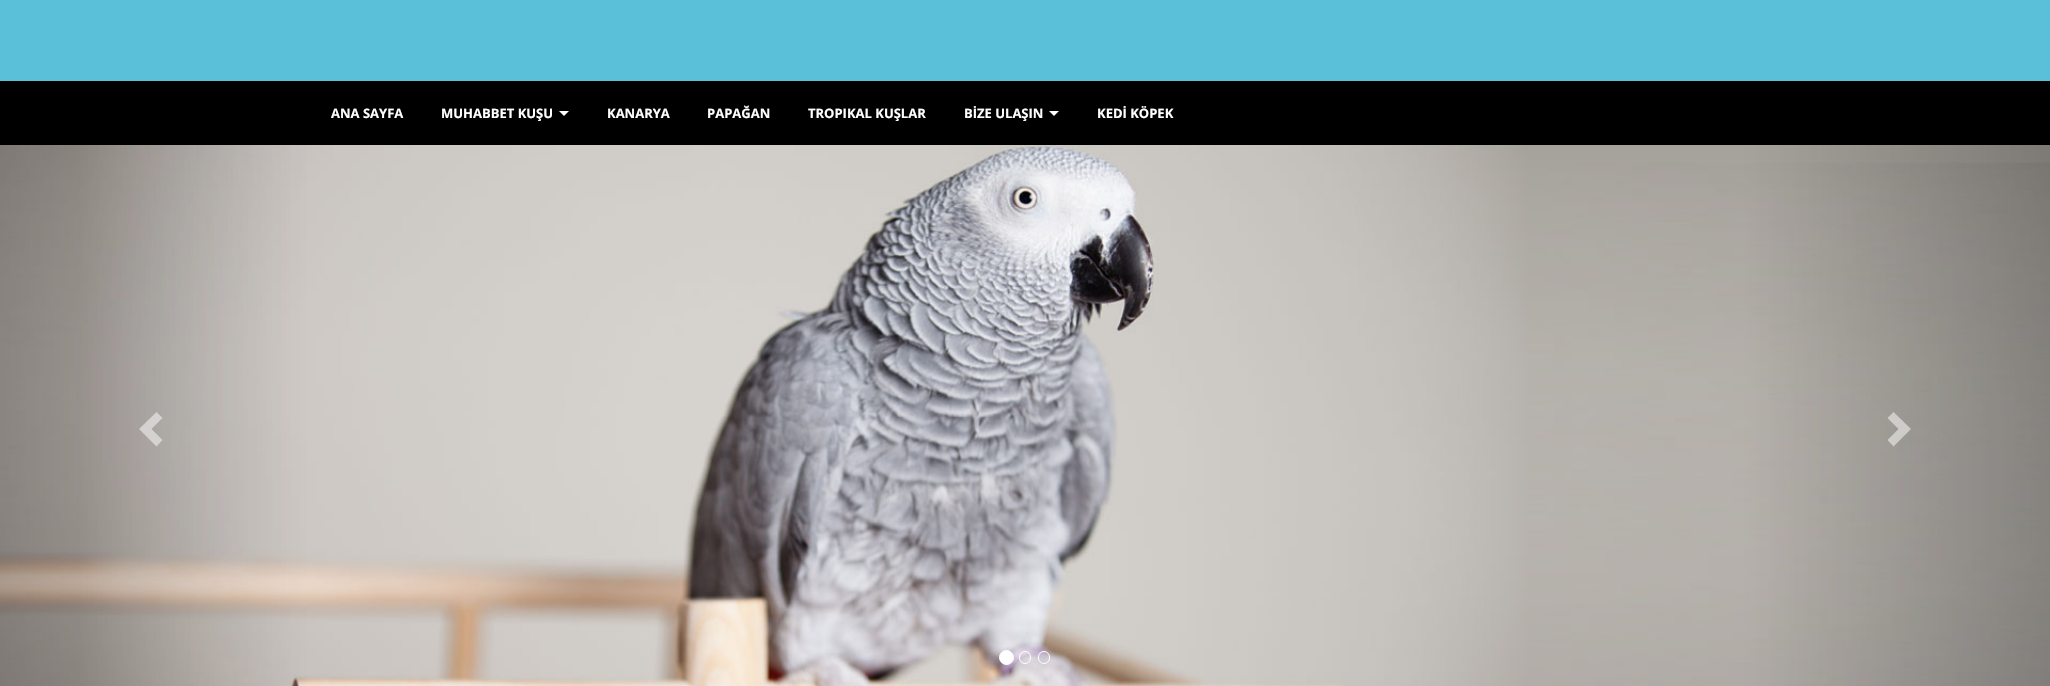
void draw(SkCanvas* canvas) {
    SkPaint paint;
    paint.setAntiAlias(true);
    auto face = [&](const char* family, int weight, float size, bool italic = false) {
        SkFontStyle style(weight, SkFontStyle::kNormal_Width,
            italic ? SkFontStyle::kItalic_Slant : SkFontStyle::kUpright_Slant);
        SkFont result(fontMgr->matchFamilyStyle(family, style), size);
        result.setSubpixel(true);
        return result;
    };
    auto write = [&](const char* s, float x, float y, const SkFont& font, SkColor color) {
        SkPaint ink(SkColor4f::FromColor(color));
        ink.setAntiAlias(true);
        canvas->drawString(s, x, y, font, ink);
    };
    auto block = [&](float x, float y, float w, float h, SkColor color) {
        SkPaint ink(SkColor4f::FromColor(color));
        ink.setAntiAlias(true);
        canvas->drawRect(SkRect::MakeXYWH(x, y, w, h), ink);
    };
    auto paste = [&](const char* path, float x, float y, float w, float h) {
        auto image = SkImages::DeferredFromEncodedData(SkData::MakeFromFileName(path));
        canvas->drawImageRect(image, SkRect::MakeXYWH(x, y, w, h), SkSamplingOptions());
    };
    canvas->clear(SkColorSetRGB(90, 192, 218));
    block(0, 81, 2050, 64, SK_ColorBLACK);
    auto kFont1 = face("Open Sans", 700, 13);
    write("ANA SAYFA", 331, 118, kFont1, SK_ColorWHITE);
    write("MUHABBET KUŞU", 441, 118, kFont1, SK_ColorWHITE);
    paint.setColor(SK_ColorWHITE);
    canvas->drawPath(SkPathBuilder().moveTo(559, 111).lineTo(569, 111).lineTo(564, 116).close().detach(), paint);
    write("KANARYA", 607, 118, kFont1, SK_ColorWHITE);
    write("PAPAĞAN", 707, 118, kFont1, SK_ColorWHITE);
    write("TROPIKAL KUŞLAR", 808, 118, kFont1, SK_ColorWHITE);
    write("BİZE ULAŞIN", 964, 118, kFont1, SK_ColorWHITE);
    canvas->drawPath(SkPathBuilder().moveTo(1049, 111).lineTo(1059, 111).lineTo(1054, 116).close().detach(), paint);
    write("KEDİ KÖPEK", 1097, 118, kFont1, SK_ColorWHITE);
    paste("pic1.png", 0, 145, 2050, 541);
    paint.setColor(SkColorSetARGB(128, 255, 255, 255));
    canvas->drawPath(SkPathBuilder().moveTo(162.5f, 418).lineTo(151.5f, 429).lineTo(162.5f, 440).lineTo(156.5f, 446.5f).lineTo(139, 429).lineTo(156.5f, 412).close().detach(), paint);
    canvas->drawPath(SkPathBuilder().moveTo(1911, 429).lineTo(1893.5f, 446.5f).lineTo(1887.5f, 440).lineTo(1898.5f, 429).lineTo(1887.5f, 418).lineTo(1893.5f, 412).close().detach(), paint);
    paint.setColor(SK_ColorWHITE);
    canvas->drawCircle(1006.5f, 657.5f, 7, paint);
    paint.setStyle(SkPaint::kStroke_Style);
    paint.setStrokeWidth(1);
    canvas->drawCircle(1006.5f, 657.5f, 7, paint);
    canvas->drawRoundRect(SkRect::MakeXYWH(1019.5f, 651.5f, 11, 12), 5.5f, 5.5f, paint);
    canvas->drawRoundRect(SkRect::MakeXYWH(1038.5f, 651.5f, 11, 12), 5.5f, 5.5f, paint);
}
